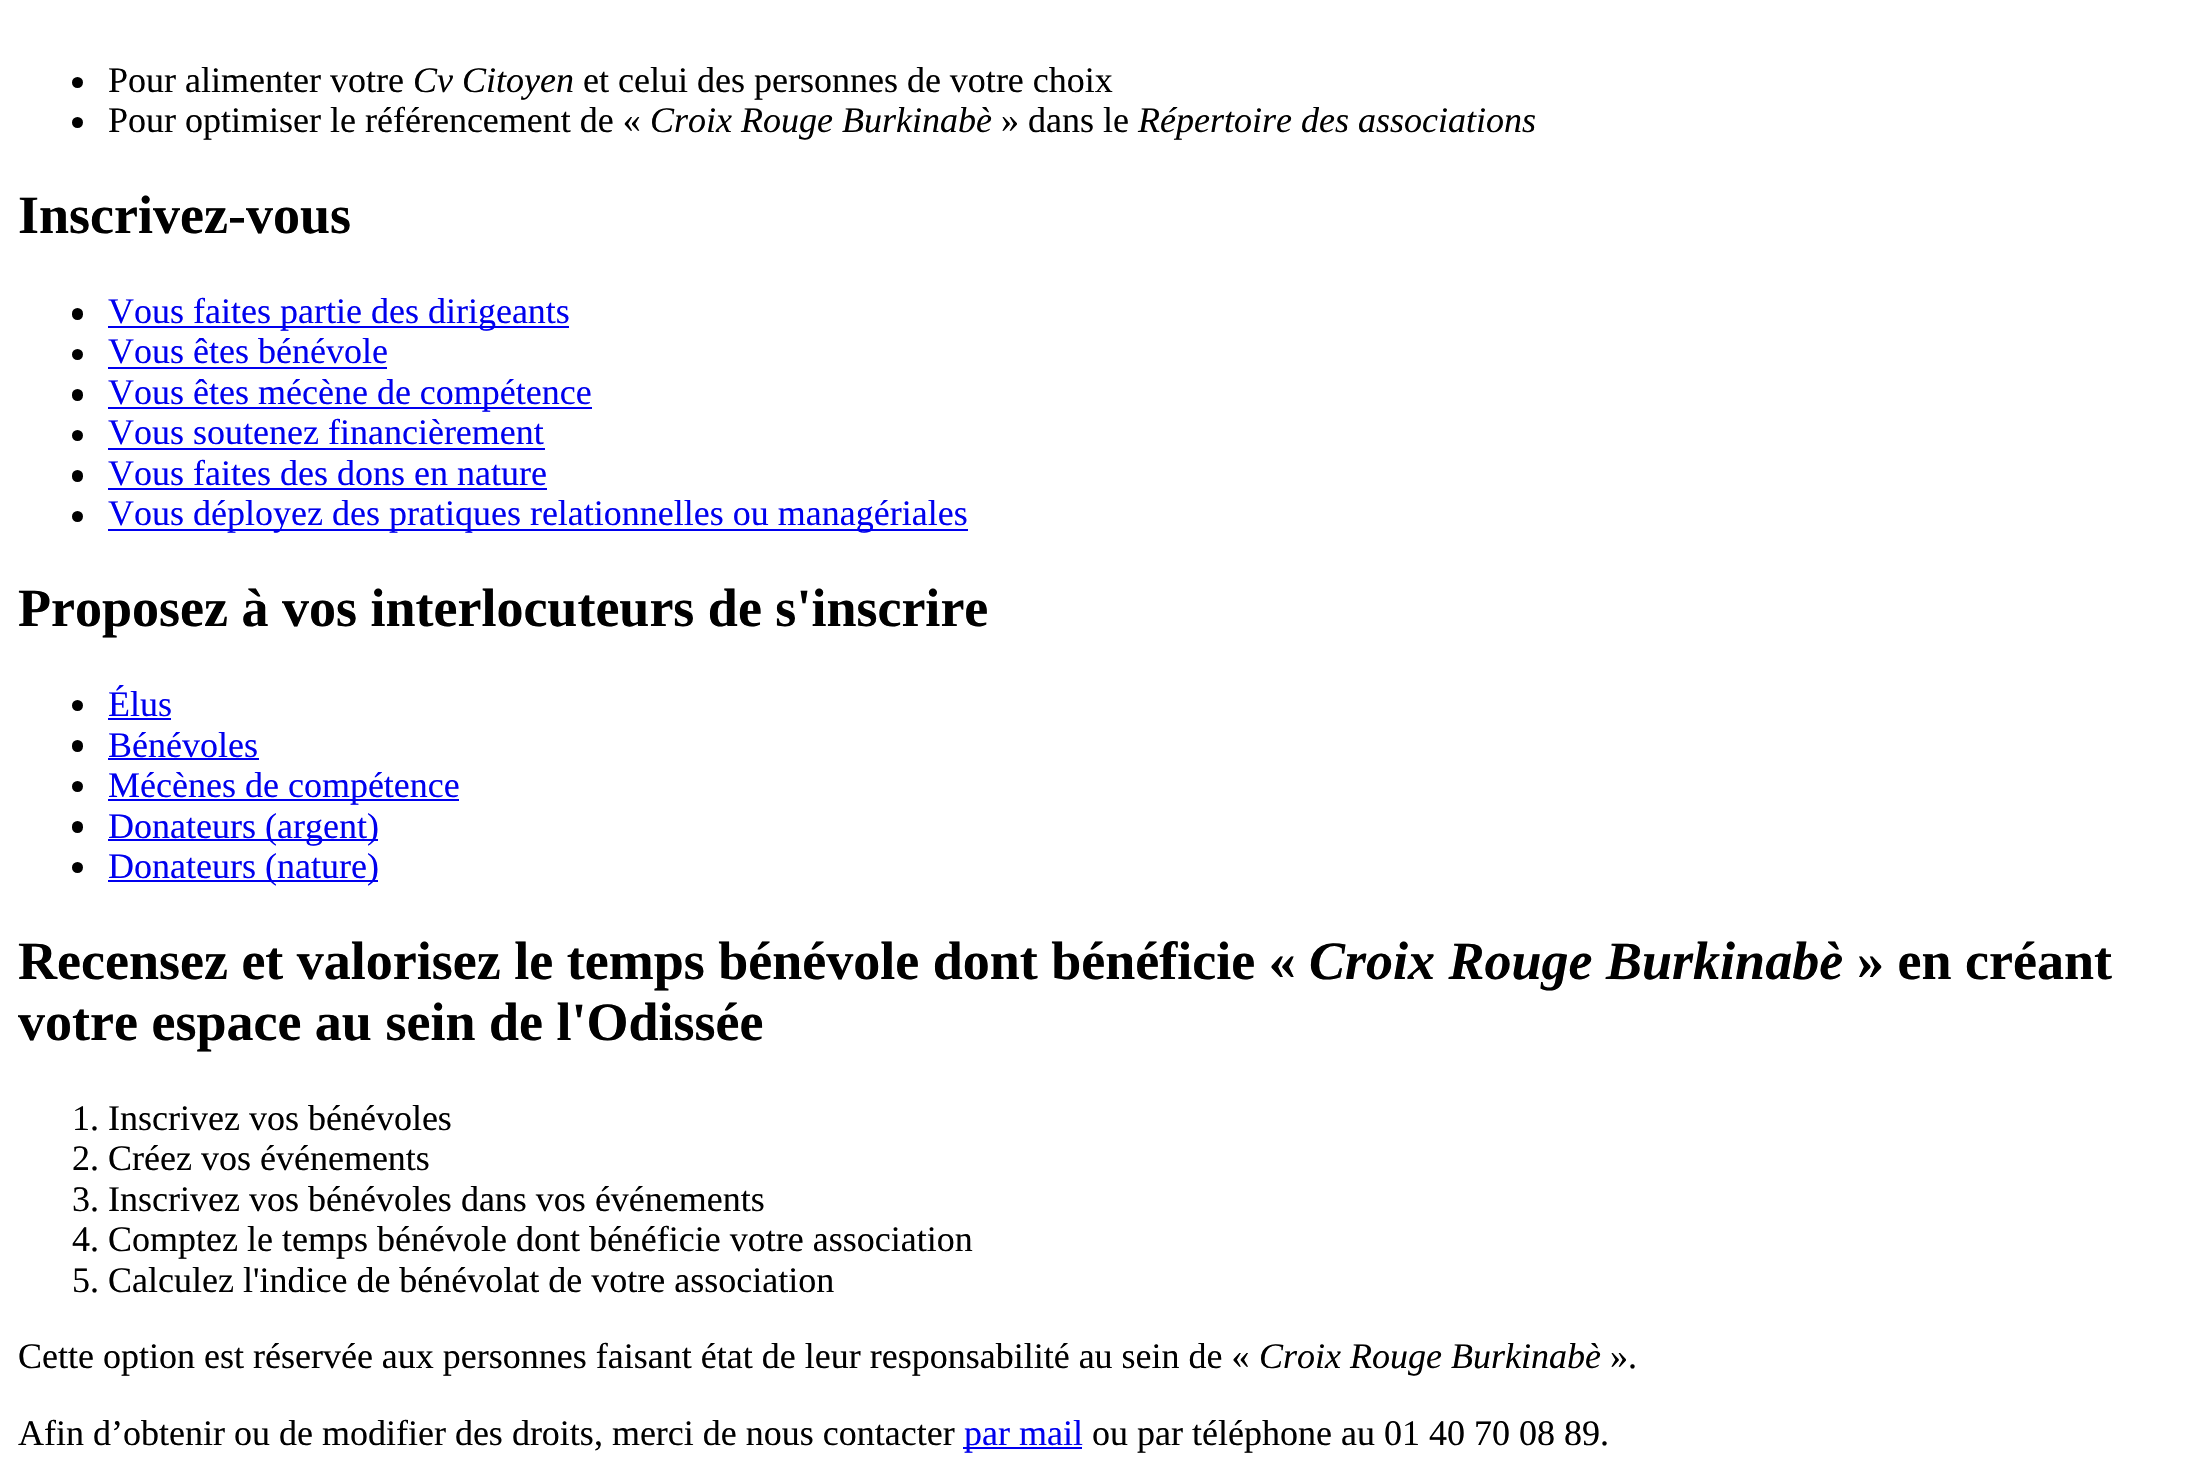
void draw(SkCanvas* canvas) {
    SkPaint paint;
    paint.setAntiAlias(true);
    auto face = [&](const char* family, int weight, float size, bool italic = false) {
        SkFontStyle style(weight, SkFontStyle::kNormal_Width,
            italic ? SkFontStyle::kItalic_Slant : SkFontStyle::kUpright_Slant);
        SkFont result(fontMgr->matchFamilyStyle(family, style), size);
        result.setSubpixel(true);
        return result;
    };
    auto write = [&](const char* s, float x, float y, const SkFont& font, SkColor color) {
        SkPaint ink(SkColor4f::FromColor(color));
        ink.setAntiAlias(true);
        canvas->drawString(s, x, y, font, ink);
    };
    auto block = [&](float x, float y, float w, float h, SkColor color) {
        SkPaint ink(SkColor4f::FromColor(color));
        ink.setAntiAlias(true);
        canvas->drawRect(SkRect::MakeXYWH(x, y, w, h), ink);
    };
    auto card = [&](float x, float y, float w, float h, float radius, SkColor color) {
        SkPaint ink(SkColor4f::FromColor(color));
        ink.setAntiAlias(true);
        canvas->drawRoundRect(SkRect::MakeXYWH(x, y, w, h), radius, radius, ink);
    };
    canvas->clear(SK_ColorWHITE);
    paint.setColor(SK_ColorBLACK);
    canvas->drawCircle(77.5f, 82.5f, 5.5f, paint);
    auto kFont1 = face("Liberation Serif", 400, 36);
    write("Pour alimenter votre", 108, 92, kFont1, SK_ColorBLACK);
    auto kFont2 = face("Liberation Serif", 400, 36, true);
    write("Cv Citoyen", 413, 92, kFont2, SK_ColorBLACK);
    write("et celui des personnes de votre choix", 583, 92, kFont1, SK_ColorBLACK);
    canvas->drawCircle(77.5f, 122.5f, 5.5f, paint);
    write("Pour optimiser le référencement de «", 108, 132, kFont1, SK_ColorBLACK);
    write("Croix Rouge Burkinabè", 650, 132, kFont2, SK_ColorBLACK);
    write("» dans le", 1001, 132, kFont1, SK_ColorBLACK);
    write("Répertoire des associations", 1138, 132, kFont2, SK_ColorBLACK);
    auto kFont3 = face("Liberation Serif", 700, 54);
    write("Inscrivez-vous", 18, 233, kFont3, SK_ColorBLACK);
    card(72, 308, 11, 12, 5.5f, SK_ColorBLACK);
    block(108, 326, 461, 2, SkColorSetRGB(0, 0, 238));
    write("Vous faites partie des dirigeants", 108, 323, kFont1, SkColorSetRGB(0, 0, 238));
    canvas->drawCircle(77.5f, 354.5f, 5.5f, paint);
    write("Vous êtes bénévole", 108, 363, kFont1, SkColorSetRGB(0, 0, 238));
    block(108, 367, 279, 2, SkColorSetRGB(0, 0, 238));
    card(72, 389, 11, 12, 5.5f, SK_ColorBLACK);
    block(108, 407, 484, 2, SkColorSetRGB(0, 0, 238));
    write("Vous êtes mécène de compétence", 108, 404, kFont1, SkColorSetRGB(0, 0, 238));
    canvas->drawCircle(77.5f, 435.5f, 5.5f, paint);
    write("Vous soutenez financièrement", 108, 444, kFont1, SkColorSetRGB(0, 0, 238));
    block(108, 448, 437, 2, SkColorSetRGB(0, 0, 238));
    card(72, 470, 11, 12, 5.5f, SK_ColorBLACK);
    write("Vous faites des dons en nature", 108, 485, kFont1, SkColorSetRGB(0, 0, 238));
    block(108, 488, 439, 2, SkColorSetRGB(0, 0, 238));
    canvas->drawCircle(77.5f, 516.5f, 5.5f, paint);
    block(108, 529, 860, 2, SkColorSetRGB(0, 0, 238));
    write("Vous déployez des pratiques relationnelles ou managériales", 108, 525, kFont1, SkColorSetRGB(0, 0, 238));
    write("Proposez à vos interlocuteurs de s'inscrire", 18, 626, kFont3, SK_ColorBLACK);
    canvas->drawCircle(77.5f, 705.5f, 5.5f, paint);
    write("Élus", 108, 716, kFont1, SkColorSetRGB(0, 0, 238));
    block(108, 718, 63, 2, SkColorSetRGB(0, 0, 238));
    card(72, 740, 11, 12, 5.5f, SK_ColorBLACK);
    write("Bénévoles", 108, 757, kFont1, SkColorSetRGB(0, 0, 238));
    block(108, 758, 151, 2, SkColorSetRGB(0, 0, 238));
    canvas->drawCircle(77.5f, 786.5f, 5.5f, paint);
    block(108, 799, 351, 2, SkColorSetRGB(0, 0, 238));
    write("Mécènes de compétence", 108, 797, kFont1, SkColorSetRGB(0, 0, 238));
    card(72, 821, 11, 12, 5.5f, SK_ColorBLACK);
    block(108, 839, 270, 2, SkColorSetRGB(0, 0, 238));
    write("Donateurs (argent)", 108, 838, kFont1, SkColorSetRGB(0, 0, 238));
    canvas->drawCircle(77.5f, 867.5f, 5.5f, paint);
    block(108, 880, 270, 2, SkColorSetRGB(0, 0, 238));
    write("Donateurs (nature)", 108, 878, kFont1, SkColorSetRGB(0, 0, 238));
    write("Recensez et valorisez le temps bénévole dont bénéficie «", 18, 979, kFont3, SK_ColorBLACK);
    auto kFont4 = face("Liberation Serif", 700, 54, true);
    write("Croix Rouge Burkinabè", 1309, 979, kFont4, SK_ColorBLACK);
    write("» en créant", 1857, 979, kFont3, SK_ColorBLACK);
    write("votre espace au sein de l'Odissée", 18, 1040, kFont3, SK_ColorBLACK);
    write("1. Inscrivez vos bénévoles", 72, 1130, kFont1, SK_ColorBLACK);
    write("2. Créez vos événements", 72, 1170, kFont1, SK_ColorBLACK);
    write("3. Inscrivez vos bénévoles dans vos événements", 72, 1211, kFont1, SK_ColorBLACK);
    write("4. Comptez le temps bénévole dont bénéficie votre association", 72, 1251, kFont1, SK_ColorBLACK);
    write("5. Calculez l'indice de bénévolat de votre association", 72, 1292, kFont1, SK_ColorBLACK);
    write("Cette option est réservée aux personnes faisant état de leur responsabilité au sein de «", 18, 1368, kFont1, SK_ColorBLACK);
    write("Croix Rouge Burkinabè", 1259, 1368, kFont2, SK_ColorBLACK);
    write("».", 1610, 1368, kFont1, SK_ColorBLACK);
    write("Afin d’obtenir ou de modifier des droits, merci de nous contacter", 18, 1445, kFont1, SK_ColorBLACK);
    block(963, 1447, 119, 2, SkColorSetRGB(0, 0, 238));
    write("par mail", 964, 1445, kFont1, SkColorSetRGB(0, 0, 238));
    write("ou par téléphone au 01 40 70 08 89.", 1092, 1445, kFont1, SK_ColorBLACK);
}
